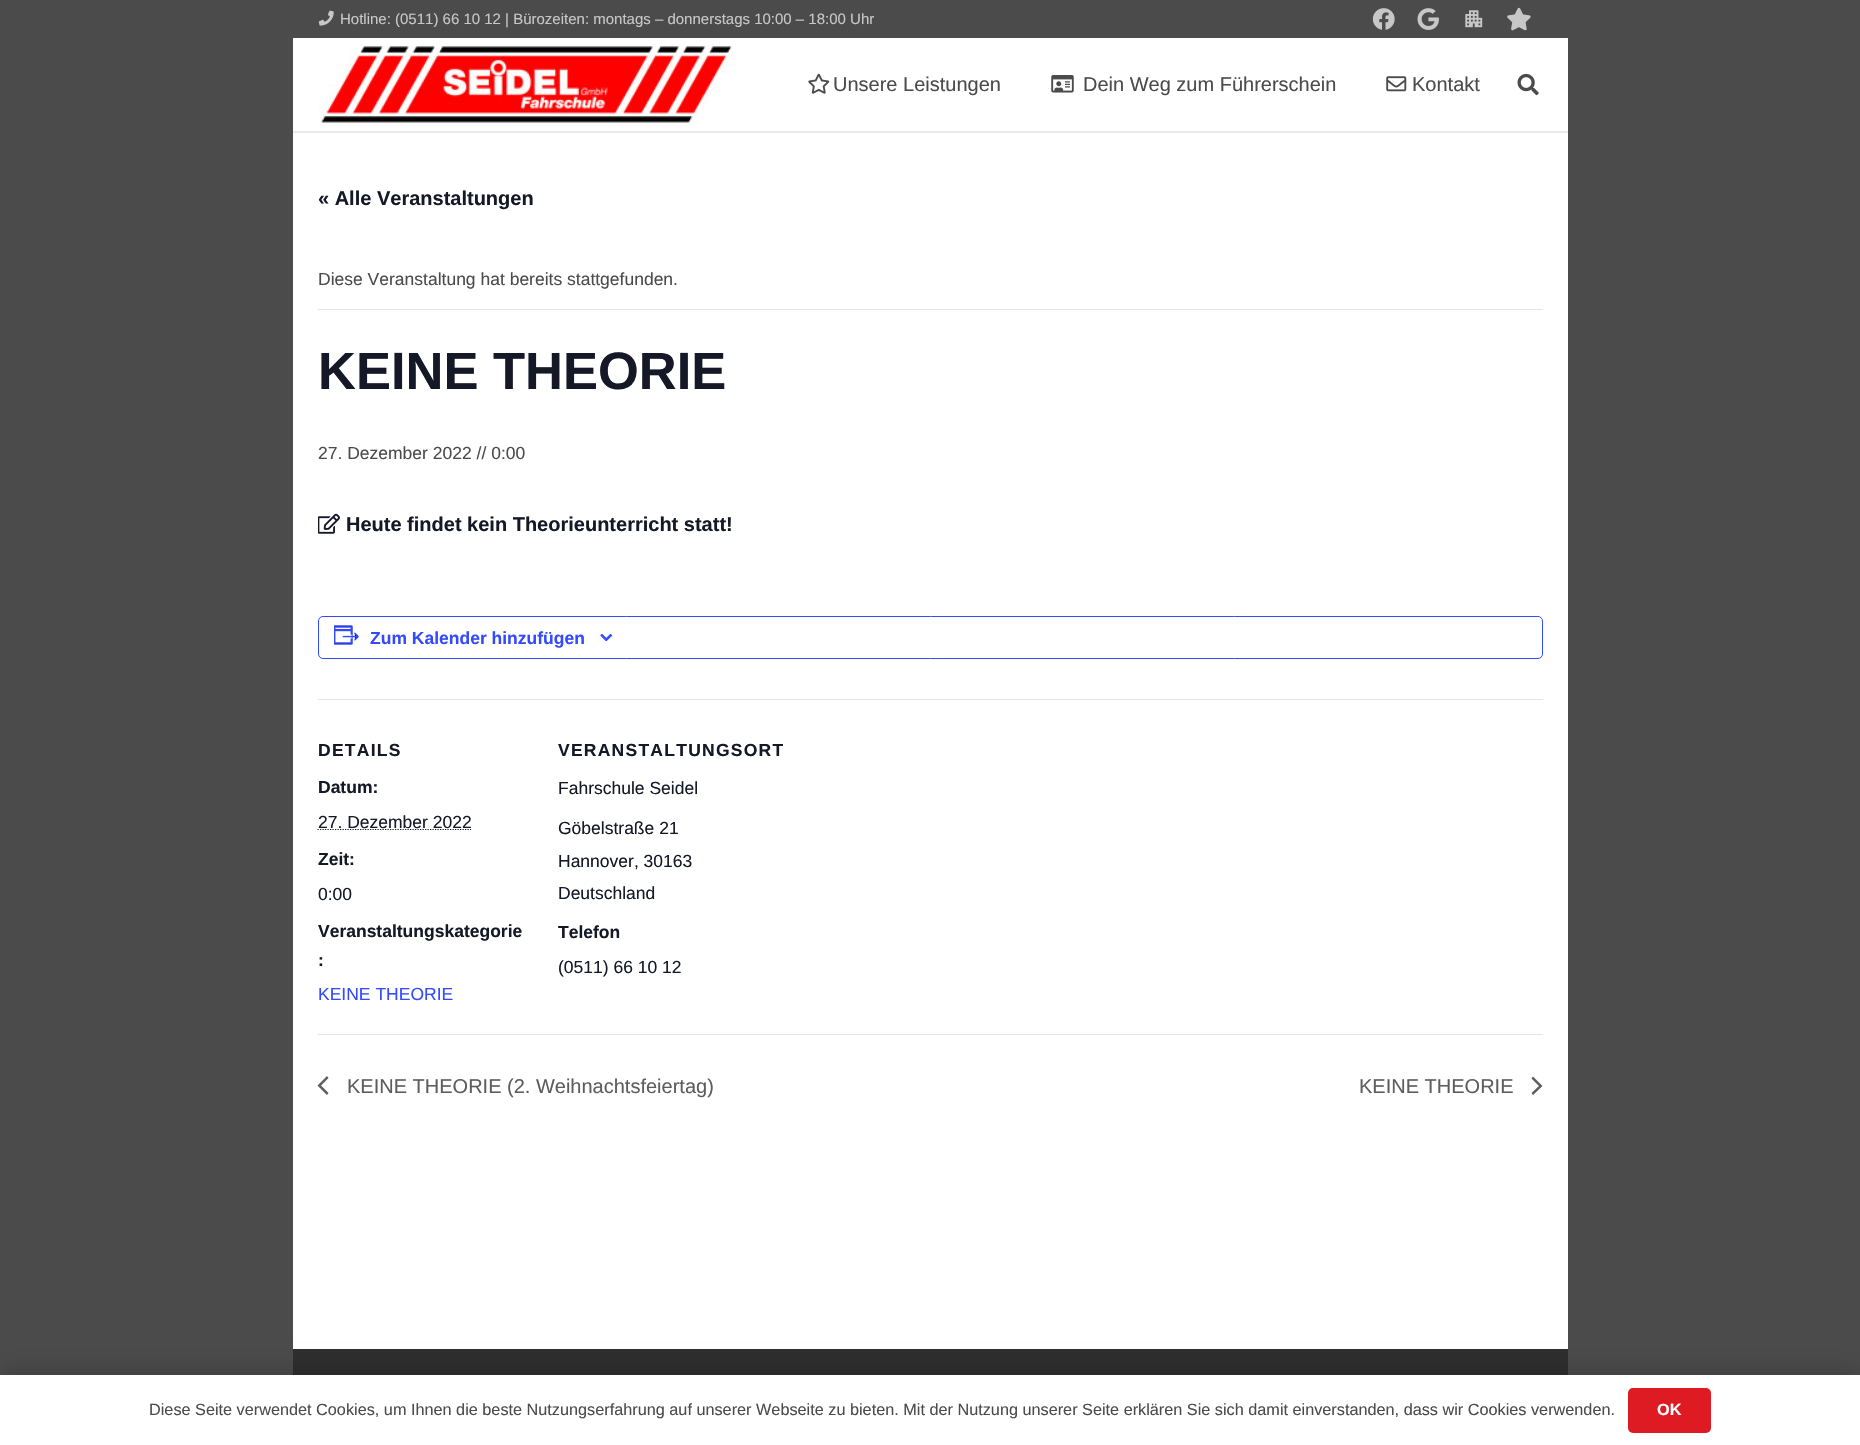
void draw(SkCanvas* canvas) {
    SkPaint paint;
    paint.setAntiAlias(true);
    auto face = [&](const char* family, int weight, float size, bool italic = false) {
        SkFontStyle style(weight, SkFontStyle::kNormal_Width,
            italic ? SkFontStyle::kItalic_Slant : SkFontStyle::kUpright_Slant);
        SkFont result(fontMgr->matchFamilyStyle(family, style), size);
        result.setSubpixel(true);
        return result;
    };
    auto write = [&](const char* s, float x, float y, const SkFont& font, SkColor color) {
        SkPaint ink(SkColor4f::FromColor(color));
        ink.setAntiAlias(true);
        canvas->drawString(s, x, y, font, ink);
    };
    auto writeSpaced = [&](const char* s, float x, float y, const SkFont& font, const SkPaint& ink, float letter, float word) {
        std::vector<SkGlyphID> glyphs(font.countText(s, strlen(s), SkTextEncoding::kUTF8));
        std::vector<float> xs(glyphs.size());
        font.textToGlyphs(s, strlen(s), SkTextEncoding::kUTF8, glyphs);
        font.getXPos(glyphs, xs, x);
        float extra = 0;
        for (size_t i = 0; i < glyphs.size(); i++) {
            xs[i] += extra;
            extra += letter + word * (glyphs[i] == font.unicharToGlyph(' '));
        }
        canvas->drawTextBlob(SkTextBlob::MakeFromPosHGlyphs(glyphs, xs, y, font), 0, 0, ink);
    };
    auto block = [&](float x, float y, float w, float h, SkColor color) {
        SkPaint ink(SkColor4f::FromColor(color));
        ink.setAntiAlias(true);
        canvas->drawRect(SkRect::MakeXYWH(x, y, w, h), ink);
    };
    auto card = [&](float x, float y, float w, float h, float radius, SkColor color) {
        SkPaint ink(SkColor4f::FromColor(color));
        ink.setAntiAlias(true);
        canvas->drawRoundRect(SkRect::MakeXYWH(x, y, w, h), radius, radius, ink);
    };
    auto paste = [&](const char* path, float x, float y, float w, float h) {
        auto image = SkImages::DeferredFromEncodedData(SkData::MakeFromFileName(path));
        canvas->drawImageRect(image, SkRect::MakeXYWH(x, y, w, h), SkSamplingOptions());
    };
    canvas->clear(SkColorSetRGB(75, 75, 75));
    block(293, 38, 1275, 1311, SK_ColorWHITE);
    paste("pic1.png", 318, 10, 16, 16);
    auto kFont1 = face("Liberation Sans", 400, 15);
    write("Hotline: (0511) 66 10 12 | Bürozeiten: montags – donnerstags 10:00 – 18:00 Uhr", 340, 24, kFont1, SkColorSetRGB(199, 199, 199));
    paste("pic2.png", 1372, 8, 23, 22);
    paste("pic3.png", 1417, 8, 22, 22);
    paste("pic4.png", 1465, 10, 18, 18);
    paste("pic5.png", 1507, 7, 24, 24);
    paint.setColor(SkColorSetRGB(235, 235, 235));
    canvas->drawPath(SkPathBuilder().moveTo(293, 131).lineTo(293, 133).lineTo(1568, 133).lineTo(1568, 39).lineTo(1568, 131).close().detach(), paint);
    paste("pic6.png", 319, 44, 413, 79);
    paste("pic7.png", 808, 73, 22, 21);
    auto kFont2 = face("Liberation Sans", 400, 20);
    write("Unsere Leistungen", 833, 91, kFont2, SkColorSetRGB(75, 75, 75));
    paste("pic8.png", 1051, 75, 23, 18);
    write("Dein Weg zum Führerschein", 1083, 91, kFont2, SkColorSetRGB(75, 75, 75));
    paste("pic9.png", 1386, 76, 21, 16);
    write("Kontakt", 1412, 91, kFont2, SkColorSetRGB(75, 75, 75));
    paste("pic10.png", 1517, 73, 22, 23);
    auto kFont3 = face("Liberation Sans", 700, 20);
    write("« Alle Veranstaltungen", 318, 205, kFont3, SkColorSetRGB(20, 24, 39));
    block(318, 309, 1225, 1, SkColorSetRGB(228, 228, 228));
    auto kFont4 = face("Liberation Sans", 400, 17.5f);
    write("Diese Veranstaltung hat bereits stattgefunden.", 318, 285, kFont4, SkColorSetRGB(75, 75, 75));
    auto kFont5 = face("Liberation Sans", 700, 52.5f);
    write("KEINE THEORIE", 318, 389, kFont5, SkColorSetRGB(20, 24, 39));
    write("27. Dezember 2022 // 0:00", 318, 459, kFont4, SkColorSetRGB(75, 75, 75));
    paste("pic11.png", 318, 513, 22, 21);
    write("Heute findet kein Theorieunterricht statt!", 346, 531, kFont3, SkColorSetRGB(20, 24, 39));
    paint.setStyle(SkPaint::kStroke_Style);
    paint.setStrokeWidth(1);
    paint.setColor(SkColorSetRGB(51, 74, 255));
    canvas->drawRoundRect(SkRect::MakeXYWH(318.5f, 616.5f, 1224, 42), 4.5f, 4.5f, paint);
    paste("pic12.png", 334, 625, 25, 20);
    auto kFont6 = face("Liberation Sans", 700, 17.5f);
    write("Zum Kalender hinzufügen", 370, 644, kFont6, SkColorSetRGB(51, 74, 255));
    paste("pic13.png", 600, 634, 13, 7);
    block(318, 699, 1225, 1, SkColorSetRGB(228, 228, 228));
    paint.setStyle(SkPaint::kFill_Style);
    paint.setColor(SkColorSetRGB(20, 24, 39));
    writeSpaced("DETAILS", 318, 756, kFont6, paint, 1.25f, 0);
    write("Datum:", 318, 793, kFont6, SkColorSetRGB(20, 24, 39));
    paint.setStyle(SkPaint::kStroke_Style);
    paint.setStrokeWidth(1.2f);
    paint.setPathEffect(SkDashPathEffect::Make({{1.25f, 1.25f}}, 0));
    canvas->drawPath(SkPathBuilder().moveTo(317.5f, 829.5f).lineTo(471, 829.5f).detach(), paint);
    paint.setPathEffect(nullptr);
    write("27. Dezember 2022", 318, 828, kFont4, SkColorSetRGB(20, 24, 39));
    write("Zeit:", 318, 865, kFont6, SkColorSetRGB(20, 24, 39));
    write("0:00", 318, 900, kFont4, SkColorSetRGB(20, 24, 39));
    write("Veranstaltungskategorie", 318, 937, kFont6, SkColorSetRGB(20, 24, 39));
    write(":", 318, 966, kFont6, SkColorSetRGB(20, 24, 39));
    write("KEINE THEORIE", 318, 1000, kFont4, SkColorSetRGB(51, 74, 255));
    paint.setStyle(SkPaint::kFill_Style);
    writeSpaced("VERANSTALTUNGSORT", 558, 756, kFont6, paint, 1.25f, 0);
    write("Fahrschule Seidel", 558, 794, kFont4, SkColorSetRGB(20, 24, 39));
    write("Göbelstraße 21", 558, 834, kFont4, SkColorSetRGB(20, 24, 39));
    write("Hannover, 30163", 558, 867, kFont4, SkColorSetRGB(20, 24, 39));
    write("Deutschland", 558, 899, kFont4, SkColorSetRGB(20, 24, 39));
    write("Telefon", 558, 938, kFont6, SkColorSetRGB(20, 24, 39));
    write("(0511) 66 10 12", 558, 973, kFont4, SkColorSetRGB(20, 24, 39));
    block(318, 1034, 1225, 1, SkColorSetRGB(228, 228, 228));
    paint.setColor(SkColorSetRGB(93, 93, 93));
    canvas->drawPath(SkPathBuilder().moveTo(328.5f, 1093).lineTo(327, 1095).lineTo(317.5f, 1085.5f).lineTo(327, 1076).lineTo(328.5f, 1078).lineTo(321, 1085.5f).close().detach(), paint);
    write("KEINE THEORIE (2. Weihnachtsfeiertag)", 347, 1093, kFont2, SkColorSetRGB(93, 93, 93));
    write("KEINE THEORIE", 1359, 1093, kFont2, SkColorSetRGB(93, 93, 93));
    canvas->drawPath(SkPathBuilder().moveTo(1531.5f, 1078.5f).lineTo(1533, 1076.5f).lineTo(1542.5f, 1086).lineTo(1533, 1095).lineTo(1531.5f, 1093).lineTo(1539, 1086).close().detach(), paint);
    block(293, 1349, 1275, 26, SkColorSetRGB(46, 46, 46));
    paint.setColor(SkColorSetARGB(38, 0, 0, 0));
    paint.setMaskFilter(SkMaskFilter::MakeBlur(kNormal_SkBlurStyle, 9.5f));
    canvas->drawRect(SkRect::MakeXYWH(0, 1369, 1860, 70), paint);
    paint.setMaskFilter(nullptr);
    block(0, 1375, 1860, 70, SK_ColorWHITE);
    auto kFont7 = face("Liberation Sans", 400, 16.25f);
    write("Diese Seite verwendet Cookies, um Ihnen die beste Nutzungserfahrung auf unserer Webseite zu bieten. Mit der Nutzung unserer Seite erklären Sie sich damit einverstanden, dass wir Cookies verwenden.", 149, 1415, kFont7, SkColorSetRGB(75, 75, 75));
    card(1628, 1388, 83, 45, 5, SkColorSetRGB(222, 27, 35));
    auto kFont8 = face("Liberation Sans", 700, 16.25f);
    write("OK", 1657, 1415, kFont8, SK_ColorWHITE);
}
